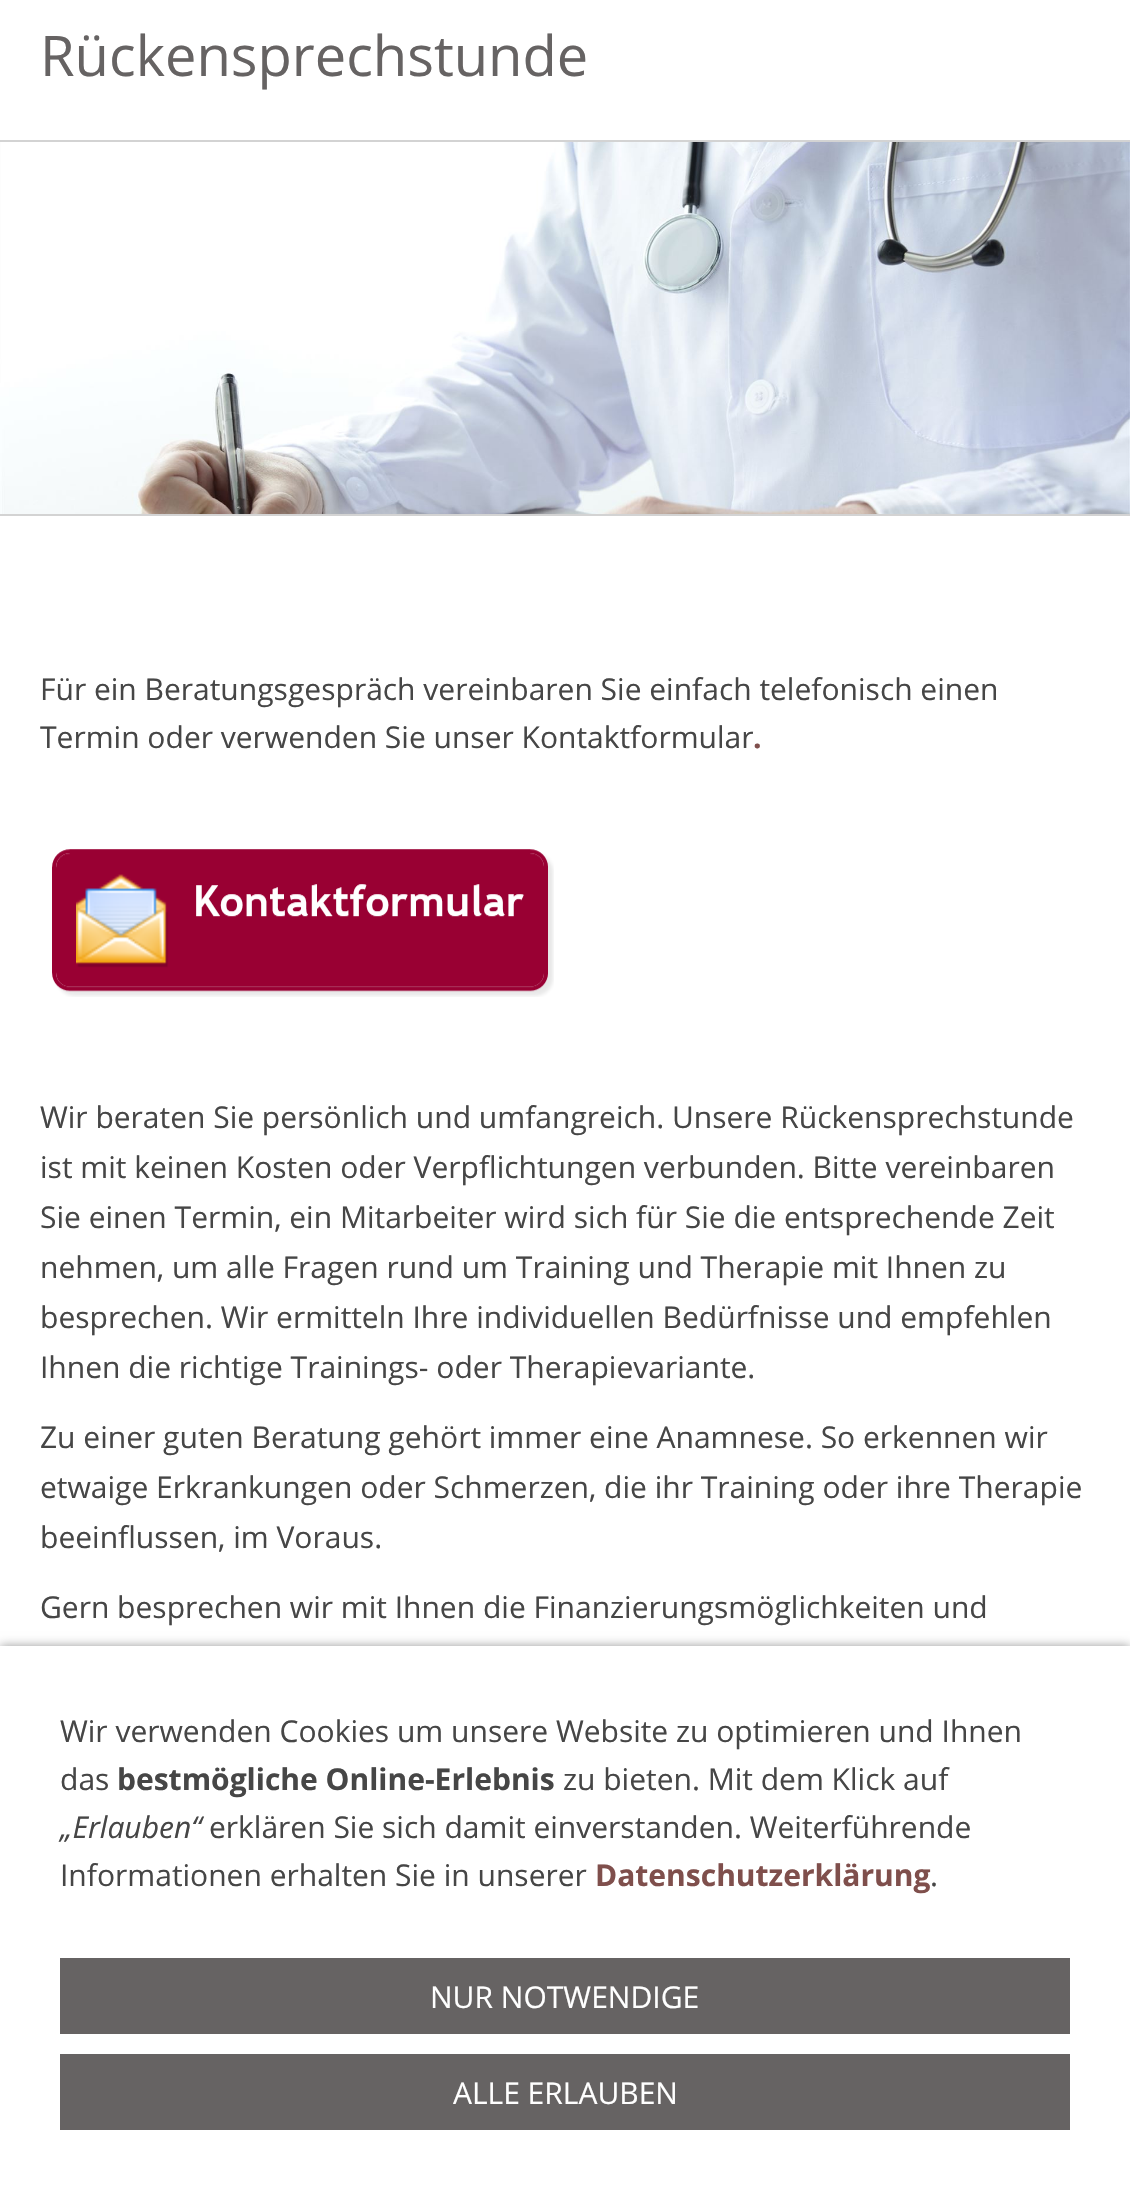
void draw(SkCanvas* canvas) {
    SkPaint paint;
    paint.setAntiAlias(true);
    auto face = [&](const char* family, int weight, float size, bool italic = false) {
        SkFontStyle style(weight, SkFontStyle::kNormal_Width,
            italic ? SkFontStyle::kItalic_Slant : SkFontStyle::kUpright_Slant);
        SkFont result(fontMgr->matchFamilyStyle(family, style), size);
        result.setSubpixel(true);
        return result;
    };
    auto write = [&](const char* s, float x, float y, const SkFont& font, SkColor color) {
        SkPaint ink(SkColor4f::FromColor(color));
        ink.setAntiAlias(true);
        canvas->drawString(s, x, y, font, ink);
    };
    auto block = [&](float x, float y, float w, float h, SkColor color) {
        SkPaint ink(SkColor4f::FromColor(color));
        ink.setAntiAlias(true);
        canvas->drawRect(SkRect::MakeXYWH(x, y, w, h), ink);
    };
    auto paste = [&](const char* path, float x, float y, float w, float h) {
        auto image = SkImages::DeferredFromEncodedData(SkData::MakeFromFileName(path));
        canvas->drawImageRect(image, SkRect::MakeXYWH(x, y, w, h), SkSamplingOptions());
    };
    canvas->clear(SK_ColorWHITE);
    auto kFont1 = face("Open Sans", 400, 56);
    write("Rückensprechstunde", 40, 76, kFont1, SkColorSetRGB(102, 99, 99));
    block(0, 140, 1130, 2, SkColorSetRGB(211, 211, 211));
    block(0, 514, 1130, 2, SkColorSetRGB(211, 211, 211));
    paste("pic1.png", 0, 142, 1130, 372);
    auto kFont2 = face("Open Sans", 400, 30);
    write("Für ein Beratungsgespräch vereinbaren Sie einfach telefonisch einen", 40, 700, kFont2, SkColorSetRGB(70, 70, 70));
    write("Termin oder verwenden Sie unser Kontaktformular", 40, 748, kFont2, SkColorSetRGB(70, 70, 70));
    auto kFont3 = face("Open Sans", 700, 30);
    write(".", 753, 748, kFont3, SkColorSetRGB(127, 79, 76));
    paste("pic2.png", 52, 849, 502, 148);
    write("Wir beraten Sie persönlich und umfangreich. Unsere Rückensprechstunde", 40, 1128, kFont2, SkColorSetRGB(70, 70, 70));
    write("ist mit keinen Kosten oder Verpflichtungen verbunden. Bitte vereinbaren", 40, 1178, kFont2, SkColorSetRGB(70, 70, 70));
    write("Sie einen Termin, ein Mitarbeiter wird sich für Sie die entsprechende Zeit", 40, 1228, kFont2, SkColorSetRGB(70, 70, 70));
    write("nehmen, um alle Fragen rund um Training und Therapie mit Ihnen zu", 40, 1278, kFont2, SkColorSetRGB(70, 70, 70));
    write("besprechen. Wir ermitteln Ihre individuellen Bedürfnisse und empfehlen", 40, 1328, kFont2, SkColorSetRGB(70, 70, 70));
    write("Ihnen die richtige Trainings- oder Therapievariante.", 40, 1378, kFont2, SkColorSetRGB(70, 70, 70));
    write("Zu einer guten Beratung gehört immer eine Anamnese. So erkennen wir", 40, 1448, kFont2, SkColorSetRGB(70, 70, 70));
    write("etwaige Erkrankungen oder Schmerzen, die ihr Training oder ihre Therapie", 40, 1498, kFont2, SkColorSetRGB(70, 70, 70));
    write("beeinflussen, im Voraus.", 40, 1548, kFont2, SkColorSetRGB(70, 70, 70));
    write("Gern besprechen wir mit Ihnen die Finanzierungsmöglichkeiten und", 40, 1618, kFont2, SkColorSetRGB(70, 70, 70));
    paint.setColor(SkColorSetARGB(102, 0, 0, 0));
    paint.setMaskFilter(SkMaskFilter::MakeBlur(kNormal_SkBlurStyle, 5));
    canvas->drawRect(SkRect::MakeXYWH(0, 1646, 1130, 544), paint);
    paint.setMaskFilter(nullptr);
    block(0, 1646, 1130, 544, SK_ColorWHITE);
    write("Wir verwenden Cookies um unsere Website zu optimieren und Ihnen", 60, 1742, kFont2, SkColorSetRGB(70, 70, 70));
    write("das", 60, 1790, kFont2, SkColorSetRGB(70, 70, 70));
    write("bestmögliche Online-Erlebnis", 117, 1790, kFont3, SkColorSetRGB(70, 70, 70));
    write("zu bieten. Mit dem Klick auf", 563, 1790, kFont2, SkColorSetRGB(70, 70, 70));
    auto kFont4 = face("Open Sans", 400, 30, true);
    write("„Erlauben“", 60, 1838, kFont4, SkColorSetRGB(70, 70, 70));
    write("erklären Sie sich damit einverstanden. Weiterführende", 209, 1838, kFont2, SkColorSetRGB(70, 70, 70));
    write("Informationen erhalten Sie in unserer", 60, 1886, kFont2, SkColorSetRGB(70, 70, 70));
    write("Datenschutzerklärung", 595, 1886, kFont3, SkColorSetRGB(127, 79, 76));
    write(".", 930, 1886, kFont2, SkColorSetRGB(70, 70, 70));
    block(60, 1958, 1010, 76, SkColorSetRGB(102, 99, 99));
    write("NUR NOTWENDIGE", 430, 2008, kFont2, SK_ColorWHITE);
    block(60, 2054, 1010, 76, SkColorSetRGB(102, 99, 99));
    write("ALLE ERLAUBEN", 453, 2104, kFont2, SK_ColorWHITE);
}
